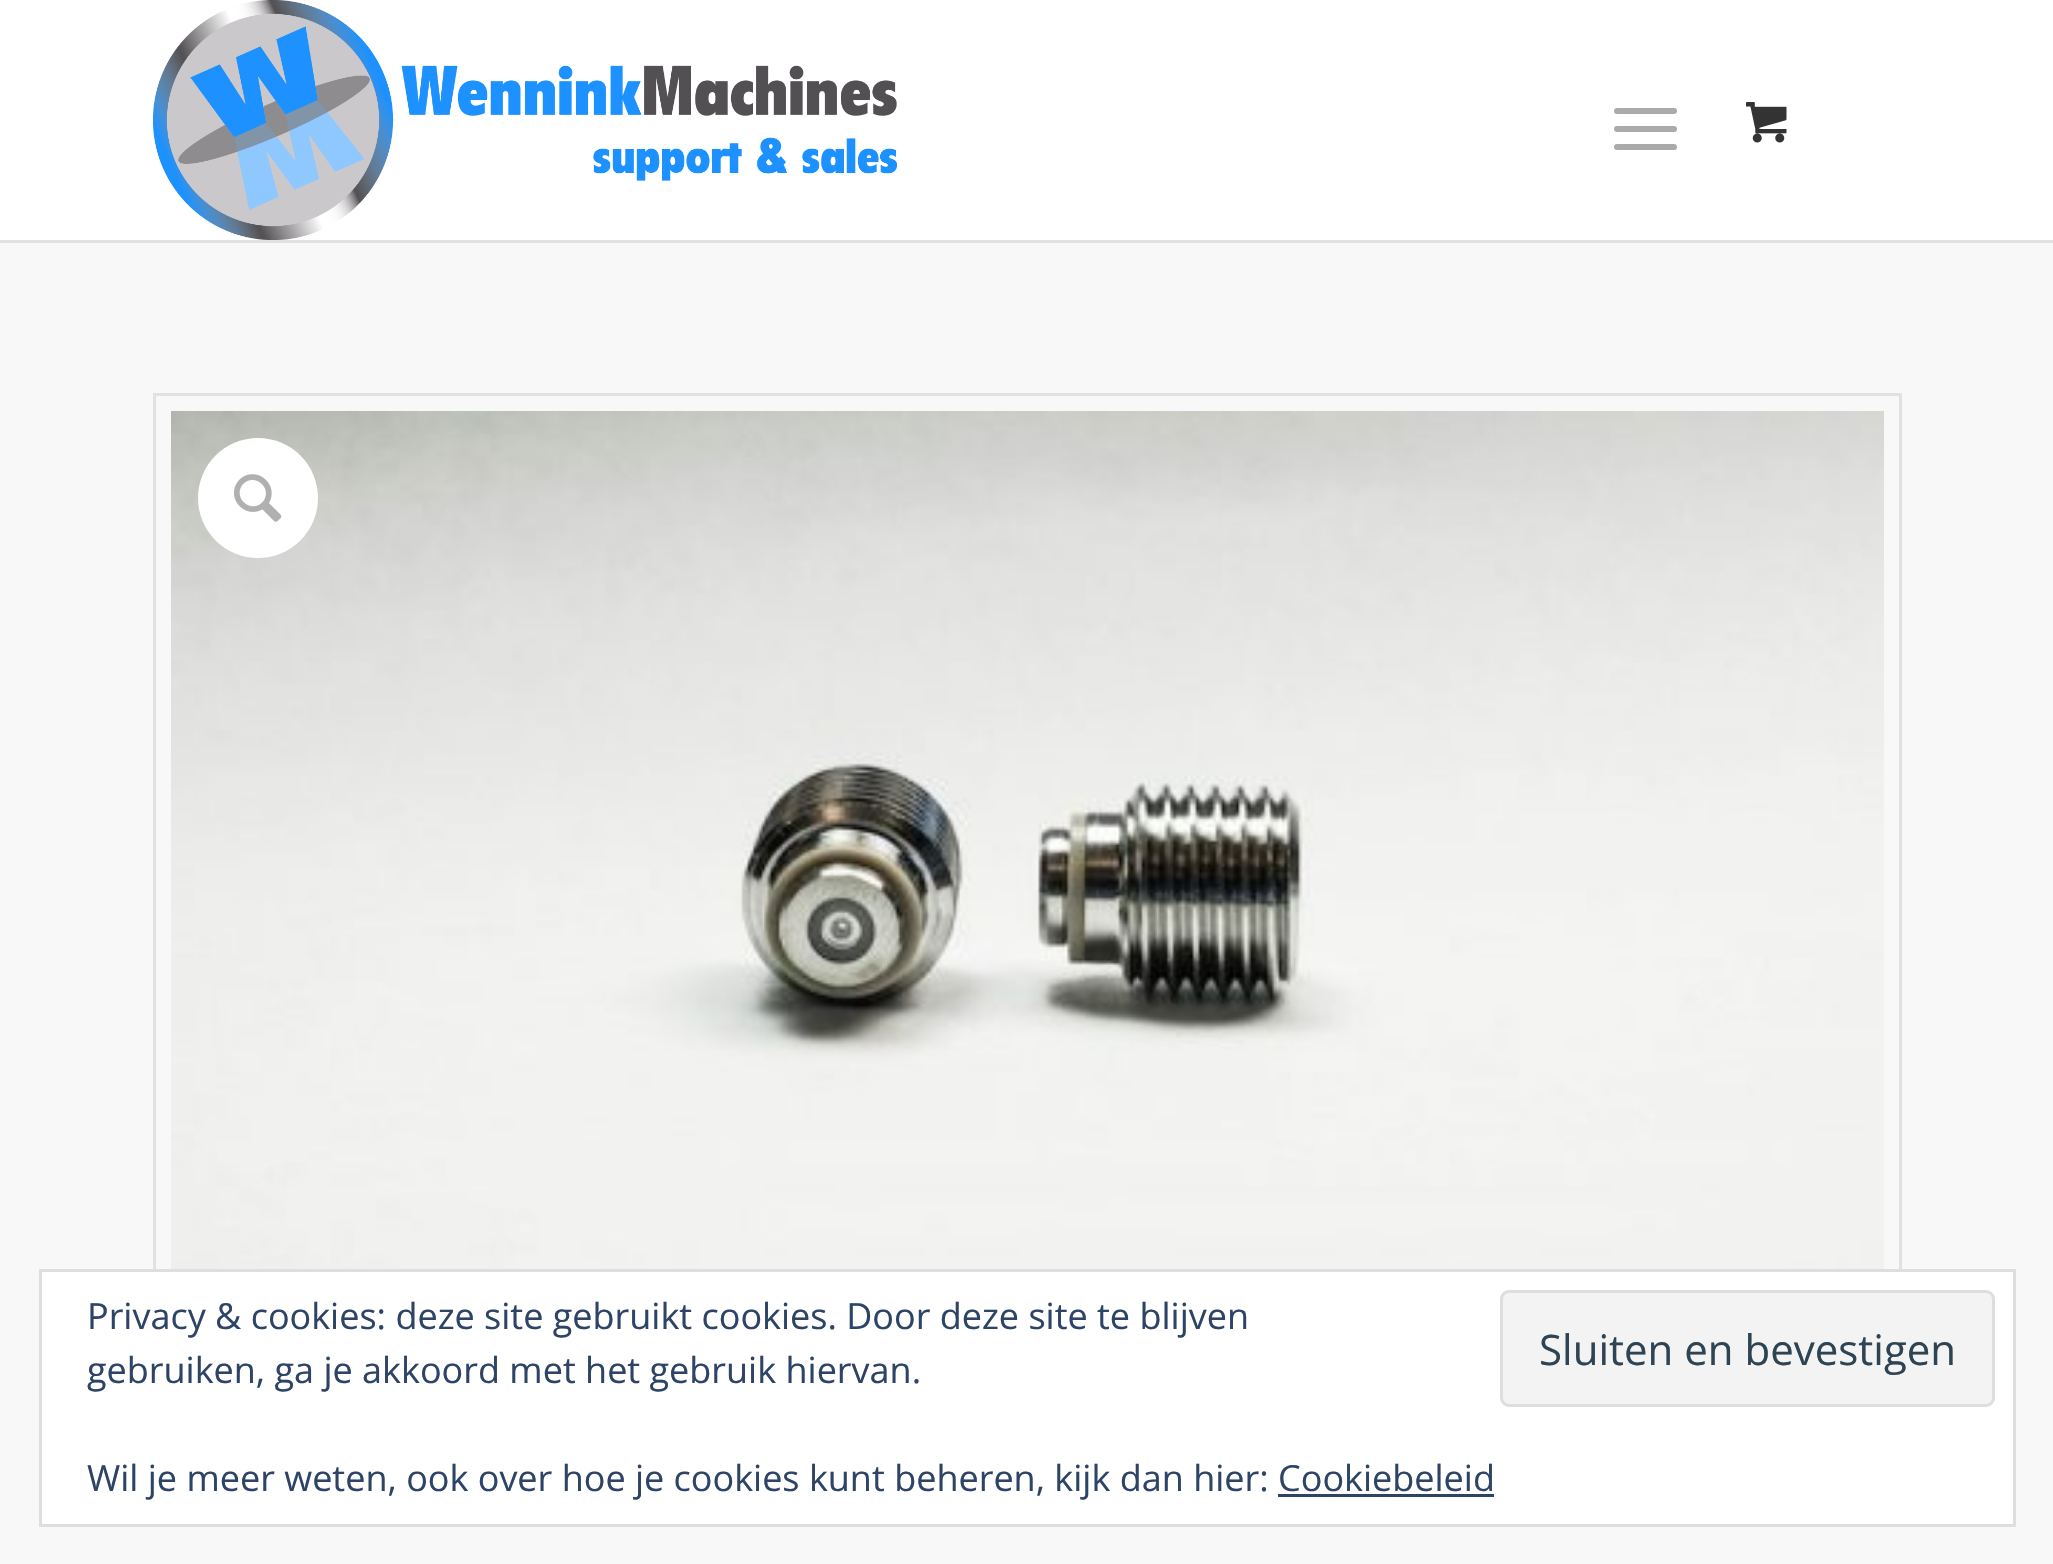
void draw(SkCanvas* canvas) {
    SkPaint paint;
    paint.setAntiAlias(true);
    auto face = [&](const char* family, int weight, float size, bool italic = false) {
        SkFontStyle style(weight, SkFontStyle::kNormal_Width,
            italic ? SkFontStyle::kItalic_Slant : SkFontStyle::kUpright_Slant);
        SkFont result(fontMgr->matchFamilyStyle(family, style), size);
        result.setSubpixel(true);
        return result;
    };
    auto write = [&](const char* s, float x, float y, const SkFont& font, SkColor color) {
        SkPaint ink(SkColor4f::FromColor(color));
        ink.setAntiAlias(true);
        canvas->drawString(s, x, y, font, ink);
    };
    auto block = [&](float x, float y, float w, float h, SkColor color) {
        SkPaint ink(SkColor4f::FromColor(color));
        ink.setAntiAlias(true);
        canvas->drawRect(SkRect::MakeXYWH(x, y, w, h), ink);
    };
    auto card = [&](float x, float y, float w, float h, float radius, SkColor color) {
        SkPaint ink(SkColor4f::FromColor(color));
        ink.setAntiAlias(true);
        canvas->drawRoundRect(SkRect::MakeXYWH(x, y, w, h), radius, radius, ink);
    };
    auto paste = [&](const char* path, float x, float y, float w, float h) {
        auto image = SkImages::DeferredFromEncodedData(SkData::MakeFromFileName(path));
        canvas->drawImageRect(image, SkRect::MakeXYWH(x, y, w, h), SkSamplingOptions());
    };
    canvas->clear(SK_ColorWHITE);
    block(0, 240, 2053, 3, SkColorSetRGB(225, 225, 225));
    paste("pic1.png", 153, 0, 744, 240);
    card(1614, 126, 63, 6, 3, SkColorSetRGB(170, 170, 170));
    card(1614, 108, 63, 6, 3, SkColorSetRGB(170, 170, 170));
    card(1614, 144, 63, 6, 3, SkColorSetRGB(170, 170, 170));
    paste("pic2.png", 1746, 102, 41, 41);
    block(0, 243, 2053, 1321, SkColorSetRGB(248, 248, 248));
    paint.setStyle(SkPaint::kStroke_Style);
    paint.setStrokeWidth(3);
    paint.setColor(SkColorSetRGB(225, 225, 225));
    canvas->drawRect(SkRect::MakeXYWH(154.5f, 394.5f, 1746, 993), paint);
    paste("pic3.png", 171, 411, 1713, 858);
    paint.setStyle(SkPaint::kFill_Style);
    paint.setColor(SK_ColorWHITE);
    canvas->drawCircle(258, 498, 60, paint);
    paste("pic4.png", 234, 474, 48, 48);
    canvas->drawRect(SkRect::MakeXYWH(40.5f, 1270.5f, 1974, 255), paint);
    paint.setStyle(SkPaint::kStroke_Style);
    paint.setColor(SkColorSetRGB(222, 222, 222));
    canvas->drawRect(SkRect::MakeXYWH(40.5f, 1270.5f, 1974, 255), paint);
    auto kFont1 = face("Open Sans", 400, 36);
    write("Privacy & cookies: deze site gebruikt cookies. Door deze site te blijven", 87, 1329, kFont1, SkColorSetRGB(46, 68, 103));
    write("gebruiken, ga je akkoord met het gebruik hiervan.", 87, 1383, kFont1, SkColorSetRGB(46, 68, 103));
    paint.setStyle(SkPaint::kFill_Style);
    paint.setColor(SkColorSetRGB(243, 243, 243));
    canvas->drawRoundRect(SkRect::MakeXYWH(1501.5f, 1291.5f, 492, 114), 7.5f, 7.5f, paint);
    paint.setStyle(SkPaint::kStroke_Style);
    paint.setColor(SkColorSetRGB(222, 222, 222));
    canvas->drawRoundRect(SkRect::MakeXYWH(1501.5f, 1291.5f, 492, 114), 7.5f, 7.5f, paint);
    auto kFont2 = face("Open Sans", 400, 42);
    write("Sluiten en bevestigen", 1539, 1365, kFont2, SkColorSetRGB(46, 68, 83));
    write("Wil je meer weten, ook over hoe je cookies kunt beheren, kijk dan hier: Cookiebeleid", 87, 1491, kFont1, SkColorSetRGB(46, 68, 103));
    block(1278, 1494, 216, 3, SkColorSetRGB(46, 68, 103));
}
